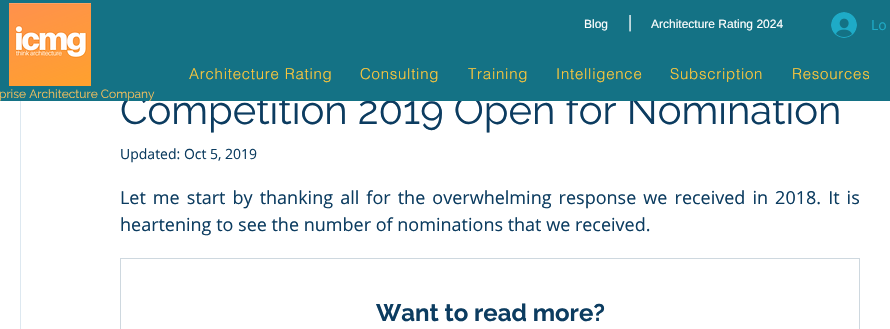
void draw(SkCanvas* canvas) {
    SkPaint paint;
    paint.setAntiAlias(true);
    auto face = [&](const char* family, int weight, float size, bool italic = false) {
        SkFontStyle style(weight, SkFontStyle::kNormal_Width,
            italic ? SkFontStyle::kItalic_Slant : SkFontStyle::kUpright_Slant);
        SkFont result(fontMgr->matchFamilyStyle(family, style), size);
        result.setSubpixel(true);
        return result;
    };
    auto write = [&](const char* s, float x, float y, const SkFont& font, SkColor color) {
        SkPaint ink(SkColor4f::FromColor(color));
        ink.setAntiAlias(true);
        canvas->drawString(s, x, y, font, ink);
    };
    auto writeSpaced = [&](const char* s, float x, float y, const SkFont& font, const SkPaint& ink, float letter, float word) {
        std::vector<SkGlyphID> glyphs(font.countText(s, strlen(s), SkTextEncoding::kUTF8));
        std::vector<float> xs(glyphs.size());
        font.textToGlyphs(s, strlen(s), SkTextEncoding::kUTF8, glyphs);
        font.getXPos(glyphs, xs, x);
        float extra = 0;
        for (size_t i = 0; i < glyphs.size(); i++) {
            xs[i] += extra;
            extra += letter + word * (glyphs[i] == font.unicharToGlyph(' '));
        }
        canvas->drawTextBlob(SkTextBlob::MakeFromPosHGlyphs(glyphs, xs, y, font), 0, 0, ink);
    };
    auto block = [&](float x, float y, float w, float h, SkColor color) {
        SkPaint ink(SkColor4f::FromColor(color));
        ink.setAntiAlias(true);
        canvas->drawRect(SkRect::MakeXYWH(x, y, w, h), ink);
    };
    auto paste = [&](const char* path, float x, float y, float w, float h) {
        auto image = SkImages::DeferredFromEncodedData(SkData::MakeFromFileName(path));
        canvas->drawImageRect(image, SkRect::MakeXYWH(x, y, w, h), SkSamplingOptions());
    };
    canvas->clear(SK_ColorWHITE);
    paint.setStyle(SkPaint::kStroke_Style);
    paint.setStrokeWidth(1);
    paint.setColor(SkColorSetRGB(221, 232, 240));
    canvas->drawRect(SkRect::MakeXYWH(20.5f, -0.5f, 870, 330), paint);
    auto kFont1 = face("Raleway", 400, 40);
    write("Competition 2019 Open for Nomination", 120, 124, kFont1, SkColorSetRGB(12, 60, 96));
    block(0, 0, 890, 101, SkColorSetRGB(20, 114, 133));
    paste("pic1.png", 9, 3, 82, 83);
    auto kFont2 = face("Liberation Sans", 400, 12);
    write("Blog", 584, 28, kFont2, SK_ColorWHITE);
    auto kFont3 = face("Raleway", 400, 18);
    write("|", 628, 29, kFont3, SK_ColorWHITE);
    write("Architecture Rating 2024", 651, 28, kFont2, SK_ColorWHITE);
    paste("pic2.png", 831, 12, 26, 26);
    auto kFont4 = face("Open Sans", 400, 14);
    write("Lo", 871, 30, kFont4, SkColorSetRGB(30, 171, 199));
    auto kFont5 = face("helvetica", 300, 15);
    paint.setStyle(SkPaint::kFill_Style);
    paint.setColor(SkColorSetRGB(255, 200, 59));
    writeSpaced("Architecture Rating", 189, 79, kFont5, paint, 0.75f, 0);
    writeSpaced("Consulting", 360, 79, kFont5, paint, 0.75f, 0);
    writeSpaced("Training", 468, 79, kFont5, paint, 0.75f, 0);
    writeSpaced("Intelligence", 556, 79, kFont5, paint, 0.75f, 0);
    writeSpaced("Subscription", 670, 79, kFont5, paint, 0.75f, 0);
    writeSpaced("Resources", 792, 79, kFont5, paint, 0.75f, 0);
    auto kFont6 = face("Raleway", 400, 12);
    write("prise Architecture Company", -1, 98, kFont6, SkColorSetRGB(242, 191, 94));
    write("Updated: Oct 5, 2019", 120, 159, kFont4, SkColorSetRGB(12, 60, 96));
    auto kFont7 = face("Open Sans", 400, 18);
    paint.setColor(SkColorSetRGB(12, 60, 96));
    writeSpaced("Let me start by thanking all for the overwhelming response we received in 2018. It is", 120, 204, kFont7, paint, 0, 2.4f);
    write("heartening to see the number of nominations that we received.", 120, 231, kFont7, SkColorSetRGB(12, 60, 96));
    paint.setStyle(SkPaint::kStroke_Style);
    paint.setColor(SkColorSetRGB(206, 216, 223));
    canvas->drawRect(SkRect::MakeXYWH(120.5f, 258.5f, 739, 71), paint);
    auto kFont8 = face("Raleway", 700, 24);
    write("Want to read more?", 376, 321, kFont8, SkColorSetRGB(12, 60, 96));
}
